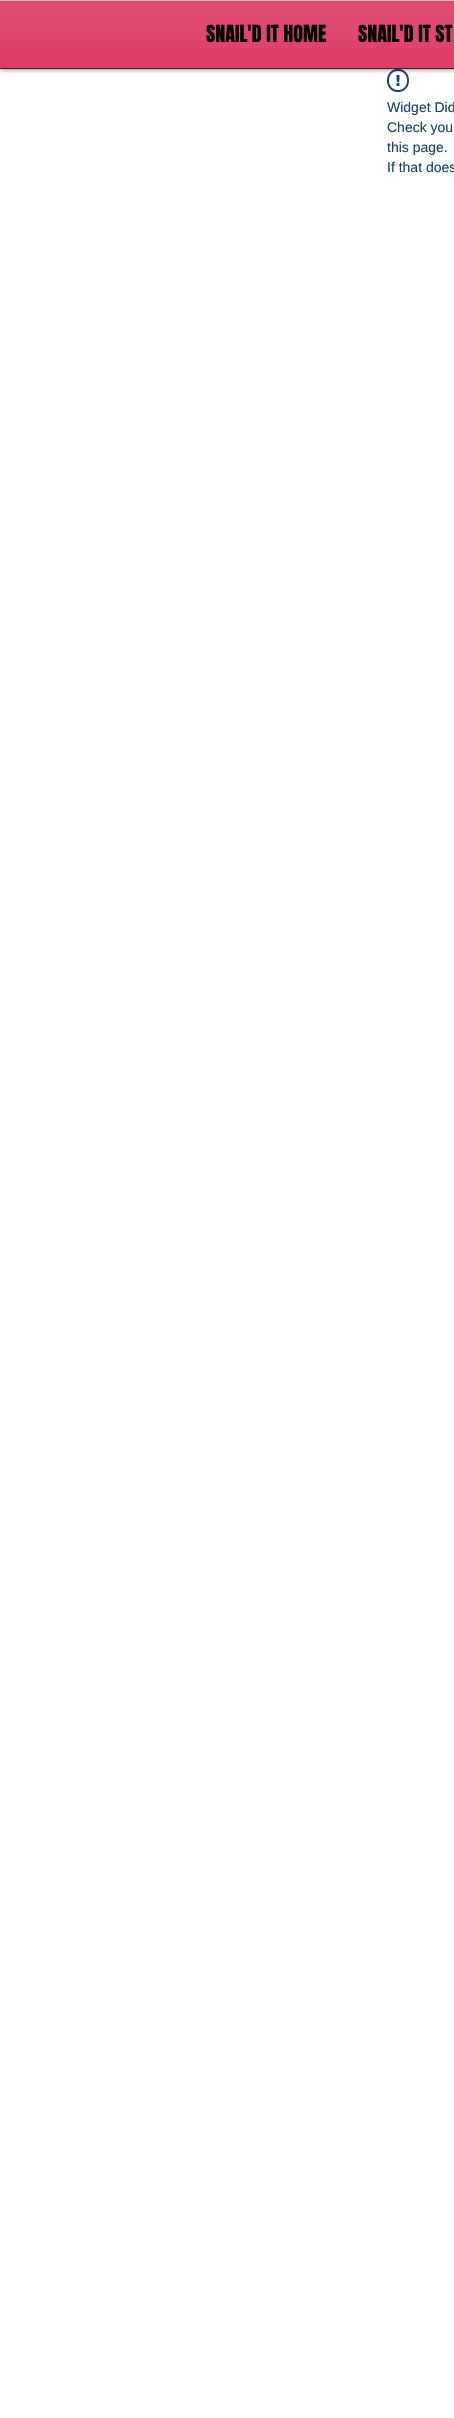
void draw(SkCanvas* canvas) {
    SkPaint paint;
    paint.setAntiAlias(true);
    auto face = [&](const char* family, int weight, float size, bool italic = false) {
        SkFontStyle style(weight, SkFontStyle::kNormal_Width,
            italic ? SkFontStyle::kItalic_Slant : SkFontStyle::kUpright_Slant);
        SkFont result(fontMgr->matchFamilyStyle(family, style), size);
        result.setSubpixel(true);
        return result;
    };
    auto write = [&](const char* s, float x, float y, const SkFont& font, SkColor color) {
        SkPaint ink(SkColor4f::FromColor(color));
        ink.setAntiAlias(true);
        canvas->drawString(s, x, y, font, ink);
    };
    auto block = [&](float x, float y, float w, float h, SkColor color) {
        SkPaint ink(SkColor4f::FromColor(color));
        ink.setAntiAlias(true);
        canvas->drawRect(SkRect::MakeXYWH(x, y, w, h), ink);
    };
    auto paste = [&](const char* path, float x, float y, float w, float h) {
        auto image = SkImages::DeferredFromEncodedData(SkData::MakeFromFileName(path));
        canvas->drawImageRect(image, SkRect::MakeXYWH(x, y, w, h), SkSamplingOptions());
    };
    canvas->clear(SK_ColorWHITE);
    paste("pic2.png", 387, 69, 22, 23);
    paint.setColor(SkColorSetARGB(153, 0, 0, 0));
    paint.setMaskFilter(SkMaskFilter::MakeBlur(kNormal_SkBlurStyle, 2.5f));
    canvas->drawRect(SkRect::MakeXYWH(0, 0, 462, 69), paint);
    paint.setMaskFilter(nullptr);
    block(0, 1, 454, 67, SkColorSetRGB(214, 16, 67));
    paste("pic1.png", 0, 1, 454, 67);
    block(0, 68, 454, 1, SkColorSetRGB(89, 24, 41));
    block(0, 0, 454, 1, SkColorSetRGB(243, 184, 199));
    auto kFont1 = face("Anton", 400, 20);
    write("SNAIL'D IT HOME", 206, 42, kFont1, SK_ColorBLACK);
    write("SNAIL'D IT ST", 358, 42, kFont1, SK_ColorBLACK);
    auto kFont2 = face("Liberation Sans", 400, 14);
    write("Widget Did", 387, 112, kFont2, SkColorSetRGB(23, 65, 101));
    write("Check you", 387, 132, kFont2, SkColorSetRGB(23, 65, 101));
    write("this page.", 387, 152, kFont2, SkColorSetRGB(23, 65, 101));
    write("If that does", 387, 172, kFont2, SkColorSetRGB(23, 65, 101));
}
